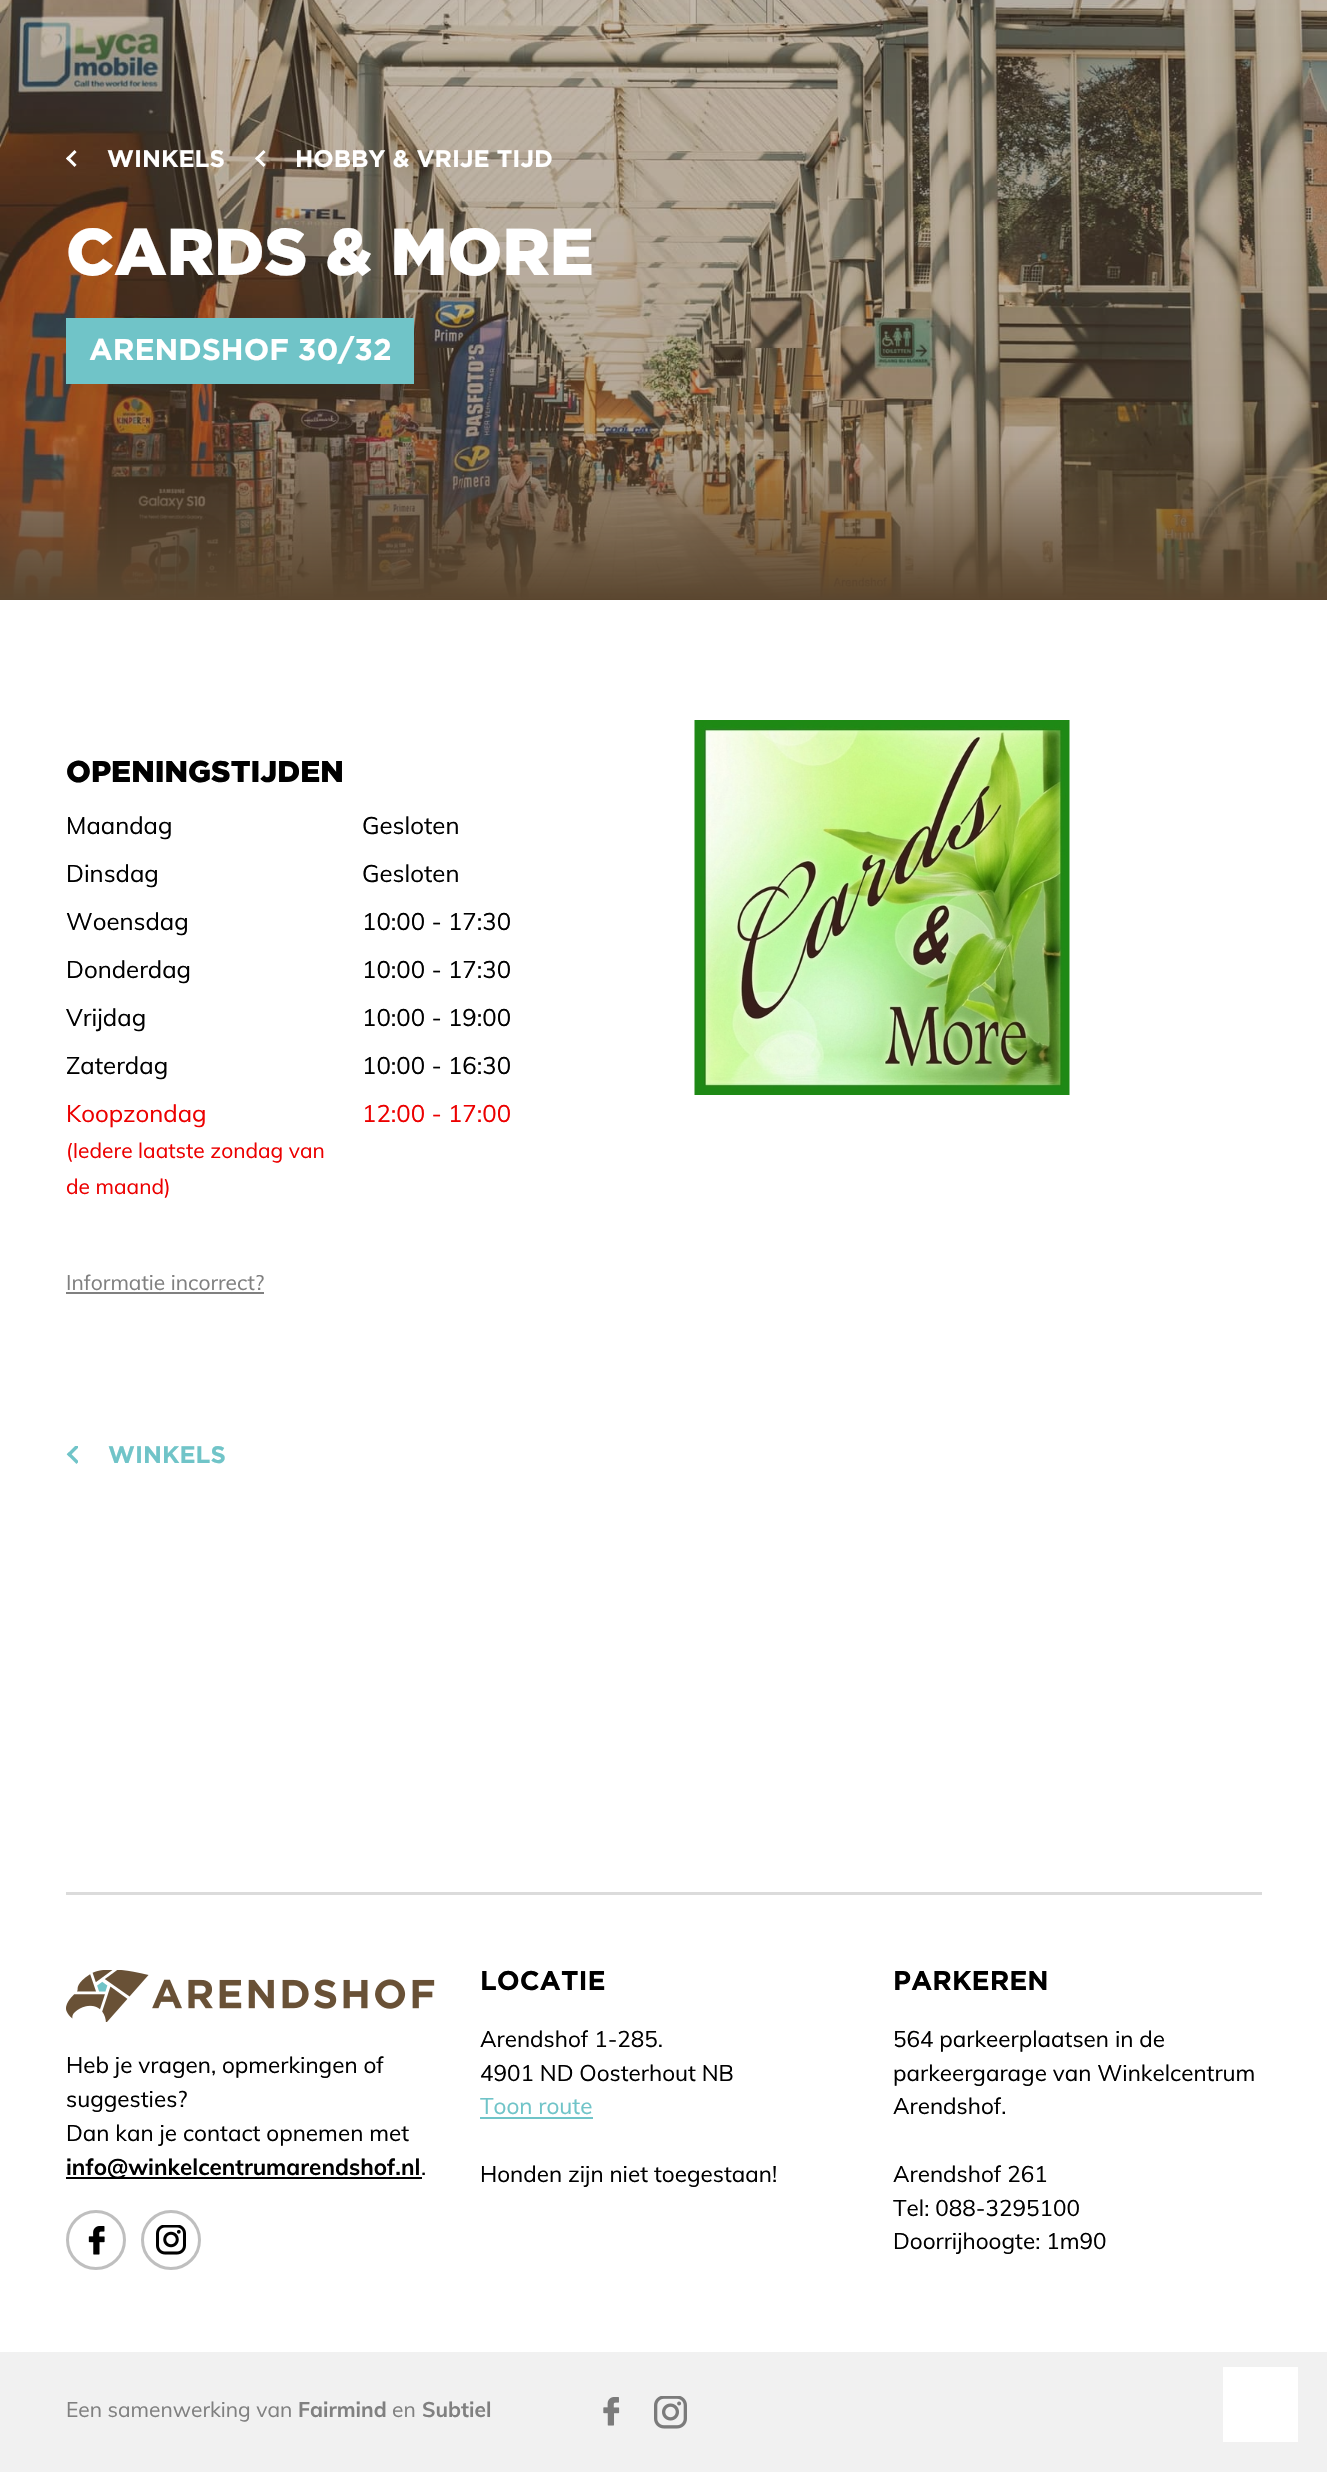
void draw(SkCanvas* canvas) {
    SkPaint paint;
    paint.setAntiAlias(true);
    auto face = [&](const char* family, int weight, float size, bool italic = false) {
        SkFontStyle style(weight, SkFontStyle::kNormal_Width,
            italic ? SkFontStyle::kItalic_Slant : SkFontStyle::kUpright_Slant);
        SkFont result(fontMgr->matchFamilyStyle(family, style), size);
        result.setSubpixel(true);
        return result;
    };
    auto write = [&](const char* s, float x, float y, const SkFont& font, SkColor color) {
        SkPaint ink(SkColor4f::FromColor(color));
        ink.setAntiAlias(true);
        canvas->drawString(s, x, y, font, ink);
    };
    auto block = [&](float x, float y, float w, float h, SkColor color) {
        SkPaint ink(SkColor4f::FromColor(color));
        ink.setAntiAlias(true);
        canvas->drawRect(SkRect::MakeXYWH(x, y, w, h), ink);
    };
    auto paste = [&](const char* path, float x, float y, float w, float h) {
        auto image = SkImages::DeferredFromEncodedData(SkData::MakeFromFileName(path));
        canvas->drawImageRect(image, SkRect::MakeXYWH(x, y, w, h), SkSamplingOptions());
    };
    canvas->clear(SK_ColorWHITE);
    paste("pic1.png", 0, 0, 1327, 600);
    paste("pic2.png", 66, 150, 11, 17);
    auto kFont1 = face("Gotham", 700, 24);
    write("WINKELS", 107, 167, kFont1, SK_ColorWHITE);
    paste("pic3.png", 255, 150, 11, 17);
    write("HOBBY & VRIJE TIJD", 295, 167, kFont1, SK_ColorWHITE);
    auto kFont2 = face("Gotham", 900, 66);
    write("CARDS & MORE", 66, 275, kFont2, SK_ColorWHITE);
    block(66, 318, 348, 66, SkColorSetRGB(112, 196, 200));
    auto kFont3 = face("Gotham", 700, 30);
    write("ARENDSHOF 30/32", 89, 360, kFont3, SK_ColorWHITE);
    auto kFont4 = face("Gotham", 900, 30);
    write("OPENINGSTIJDEN", 66, 782, kFont4, SK_ColorBLACK);
    auto kFont5 = face("Muli", 400, 24);
    write("Maandag", 66, 834, kFont5, SK_ColorBLACK);
    write("Gesloten", 362, 834, kFont5, SK_ColorBLACK);
    write("Dinsdag", 66, 882, kFont5, SK_ColorBLACK);
    write("Gesloten", 362, 882, kFont5, SK_ColorBLACK);
    write("Woensdag", 66, 930, kFont5, SK_ColorBLACK);
    write("10:00 - 17:30", 362, 930, kFont5, SK_ColorBLACK);
    write("Donderdag", 66, 978, kFont5, SK_ColorBLACK);
    write("10:00 - 17:30", 362, 978, kFont5, SK_ColorBLACK);
    write("Vrijdag", 66, 1026, kFont5, SK_ColorBLACK);
    write("10:00 - 19:00", 362, 1026, kFont5, SK_ColorBLACK);
    write("Zaterdag", 66, 1074, kFont5, SK_ColorBLACK);
    write("10:00 - 16:30", 362, 1074, kFont5, SK_ColorBLACK);
    write("Koopzondag", 66, 1122, kFont5, SkColorSetRGB(236, 0, 0));
    auto kFont6 = face("Muli", 400, 21);
    write("(Iedere laatste zondag van", 66, 1158, kFont6, SkColorSetRGB(236, 0, 0));
    write("de maand)", 66, 1194, kFont6, SkColorSetRGB(236, 0, 0));
    write("12:00 - 17:00", 362, 1122, kFont5, SkColorSetRGB(236, 0, 0));
    write("Informatie incorrect?", 66, 1290, kFont6, SkColorSetRGB(128, 128, 128));
    block(66, 1292, 198, 2, SkColorSetRGB(128, 128, 128));
    paste("pic4.png", 694, 720, 376, 375);
    paste("pic5.png", 66, 1446, 12, 18);
    write("WINKELS", 108, 1463, kFont1, SkColorSetRGB(112, 196, 200));
    block(66, 1892, 1196, 3, SkColorSetRGB(219, 219, 219));
    paste("pic6.png", 66, 1970, 369, 52);
    auto kFont7 = face("Muli", 400, 22.5f);
    write("Heb je vragen, opmerkingen of", 66, 2073, kFont7, SK_ColorBLACK);
    write("suggesties?", 66, 2107, kFont7, SK_ColorBLACK);
    write("Dan kan je contact opnemen met", 66, 2141, kFont7, SK_ColorBLACK);
    block(66, 2177, 356, 2, SK_ColorBLACK);
    auto kFont8 = face("Muli", 700, 22.5f);
    write("info@winkelcentrumarendshof.nl", 66, 2175, kFont8, SK_ColorBLACK);
    write(".", 421, 2175, kFont7, SK_ColorBLACK);
    paint.setStyle(SkPaint::kStroke_Style);
    paint.setStrokeWidth(3);
    paint.setColor(SkColorSetRGB(191, 191, 191));
    canvas->drawCircle(96, 2240, 28.5f, paint);
    paste("pic7.png", 88, 2226, 17, 29);
    canvas->drawCircle(171, 2240, 28.5f, paint);
    paste("pic8.png", 156, 2225, 30, 30);
    auto kFont9 = face("Gotham", 700, 27);
    write("LOCATIE", 480, 1990, kFont9, SK_ColorBLACK);
    write("Arendshof 1-285.", 480, 2047, kFont7, SK_ColorBLACK);
    write("4901 ND Oosterhout NB", 480, 2081, kFont7, SK_ColorBLACK);
    write("Toon route", 480, 2114, kFont7, SkColorSetRGB(112, 196, 200));
    block(480, 2117, 113, 2, SkColorSetRGB(112, 196, 200));
    write("Honden zijn niet toegestaan!", 480, 2182, kFont7, SK_ColorBLACK);
    write("PARKEREN", 893, 1990, kFont9, SK_ColorBLACK);
    write("564 parkeerplaatsen in de", 893, 2047, kFont7, SK_ColorBLACK);
    write("parkeergarage van Winkelcentrum", 893, 2081, kFont7, SK_ColorBLACK);
    write("Arendshof.", 893, 2114, kFont7, SK_ColorBLACK);
    write("Arendshof 261", 893, 2182, kFont7, SK_ColorBLACK);
    write("Tel: 088-3295100", 893, 2216, kFont7, SK_ColorBLACK);
    write("Doorrijhoogte: 1m90", 893, 2249, kFont7, SK_ColorBLACK);
    block(0, 2352, 1327, 120, SkColorSetRGB(241, 241, 241));
    write("Een samenwerking van", 66, 2417, kFont6, SkColorSetRGB(128, 128, 128));
    auto kFont10 = face("Muli", 700, 21);
    write("Fairmind", 298, 2417, kFont10, SkColorSetRGB(128, 128, 128));
    write("en", 392, 2417, kFont6, SkColorSetRGB(128, 128, 128));
    write("Subtiel", 422, 2417, kFont10, SkColorSetRGB(128, 128, 128));
    paste("pic9.png", 603, 2397, 17, 29);
    paste("pic10.png", 654, 2396, 33, 33);
    block(1223, 2367, 75, 75, SK_ColorWHITE);
}
